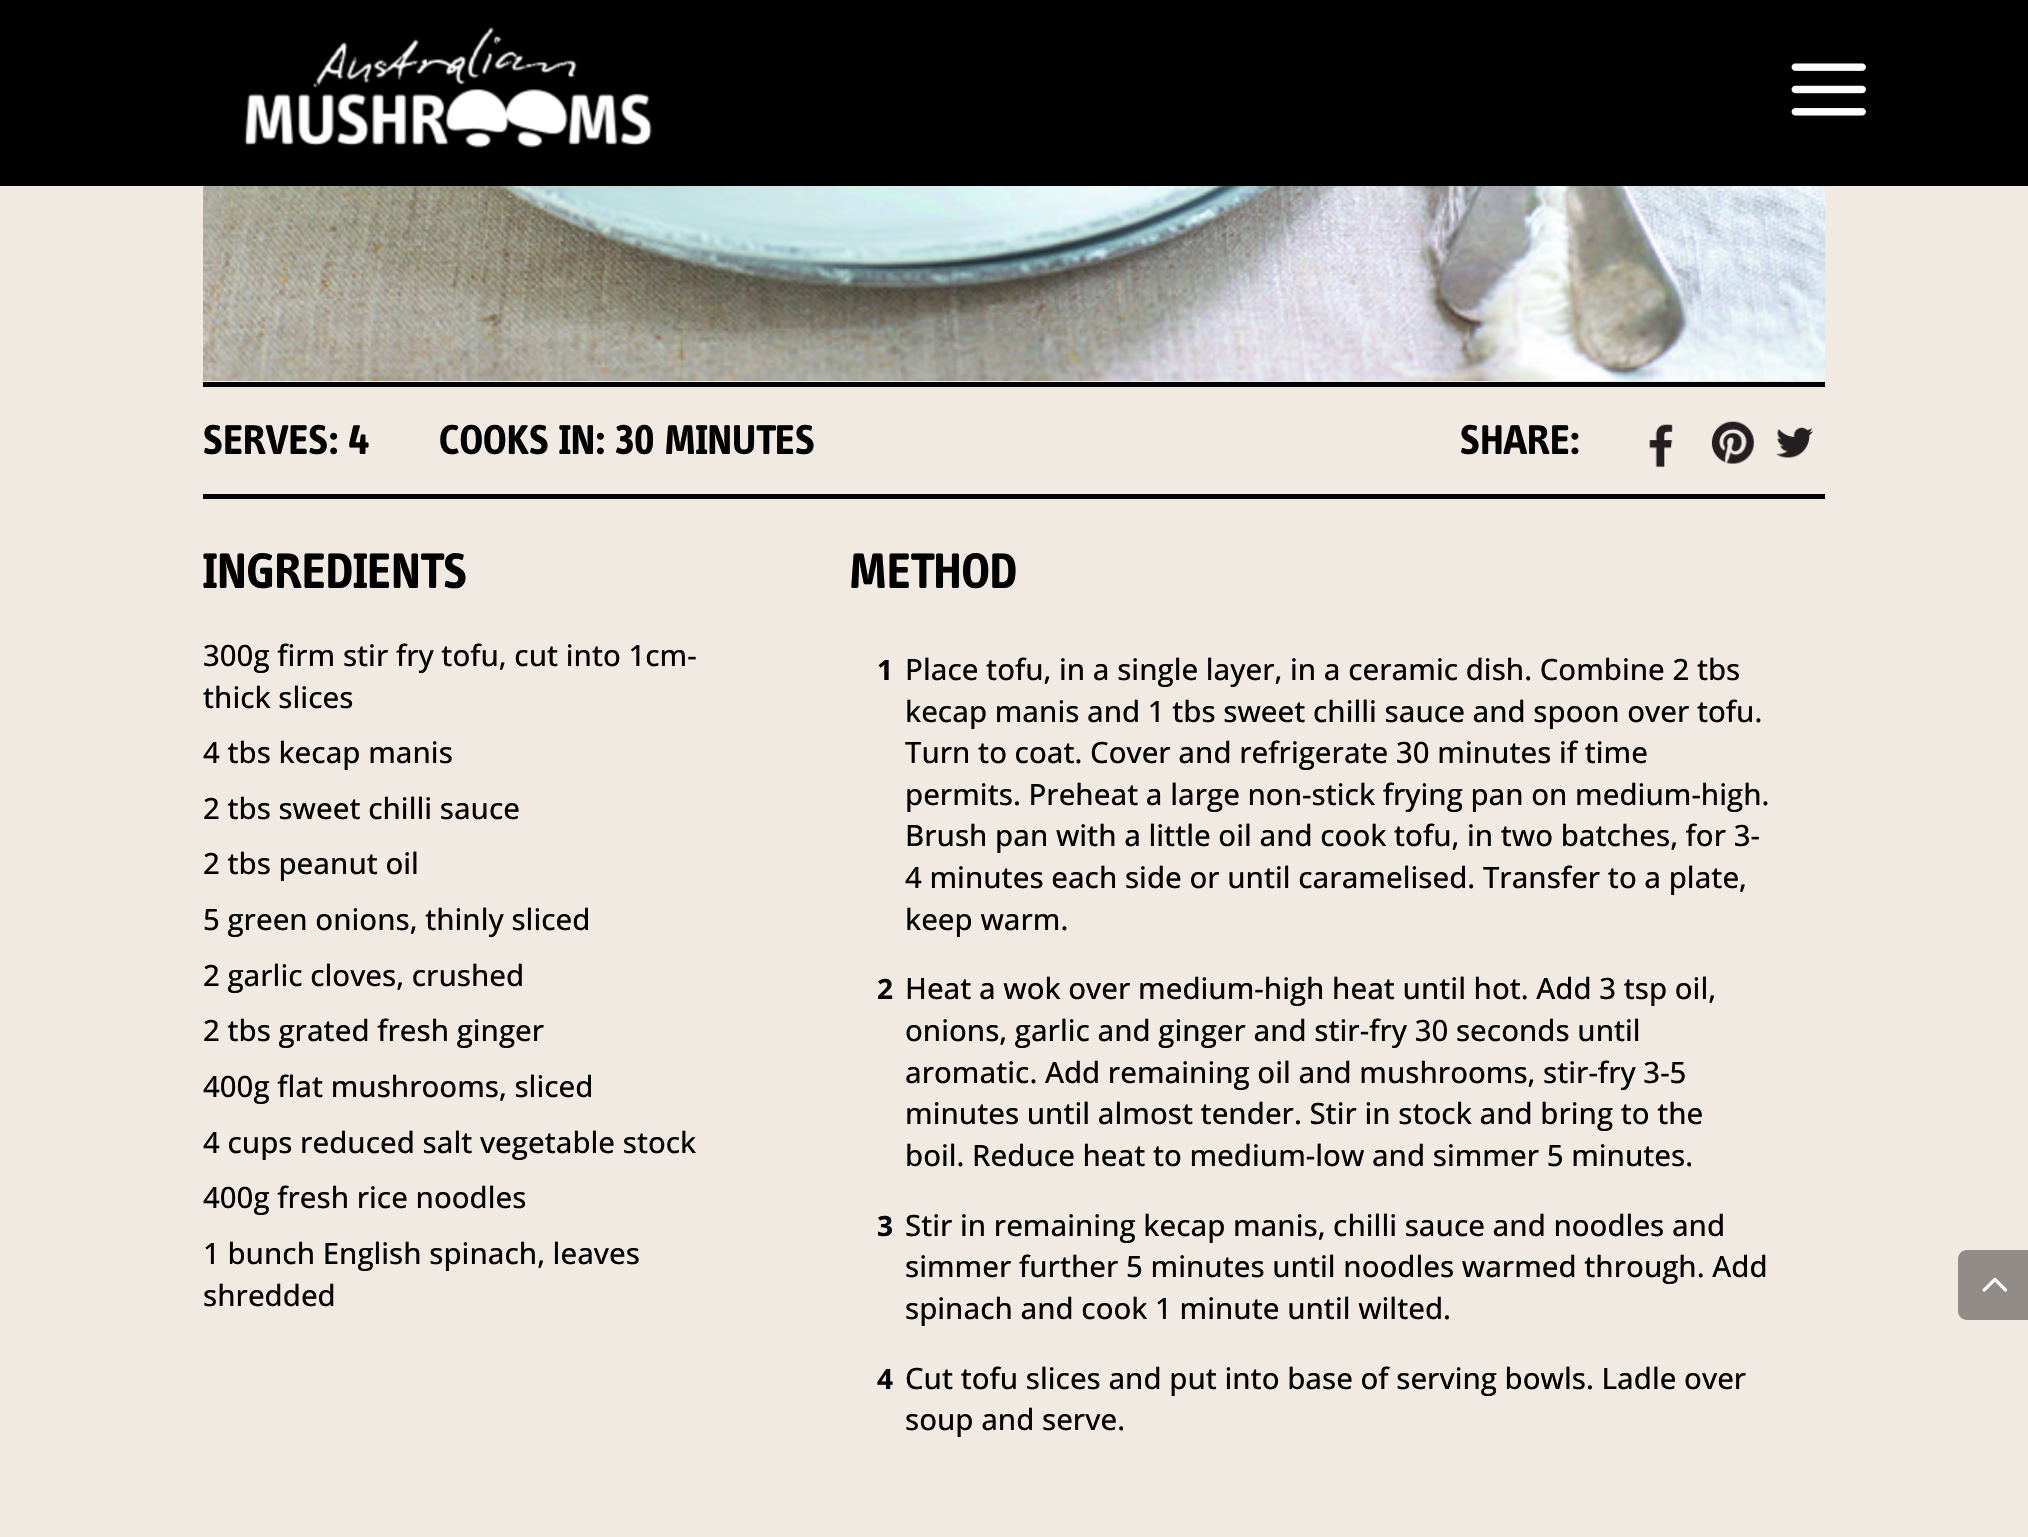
void draw(SkCanvas* canvas) {
    SkPaint paint;
    paint.setAntiAlias(true);
    auto face = [&](const char* family, int weight, float size, bool italic = false) {
        SkFontStyle style(weight, SkFontStyle::kNormal_Width,
            italic ? SkFontStyle::kItalic_Slant : SkFontStyle::kUpright_Slant);
        SkFont result(fontMgr->matchFamilyStyle(family, style), size);
        result.setSubpixel(true);
        return result;
    };
    auto write = [&](const char* s, float x, float y, const SkFont& font, SkColor color) {
        SkPaint ink(SkColor4f::FromColor(color));
        ink.setAntiAlias(true);
        canvas->drawString(s, x, y, font, ink);
    };
    auto block = [&](float x, float y, float w, float h, SkColor color) {
        SkPaint ink(SkColor4f::FromColor(color));
        ink.setAntiAlias(true);
        canvas->drawRect(SkRect::MakeXYWH(x, y, w, h), ink);
    };
    auto paste = [&](const char* path, float x, float y, float w, float h) {
        auto image = SkImages::DeferredFromEncodedData(SkData::MakeFromFileName(path));
        canvas->drawImageRect(image, SkRect::MakeXYWH(x, y, w, h), SkSamplingOptions());
    };
    canvas->clear(SkColorSetRGB(241, 234, 226));
    block(0, 0, 2028, 186, SK_ColorBLACK);
    paste("pic1.png", 244, 27, 408, 121);
    paste("pic2.png", 1791, 63, 75, 53);
    paste("pic3.png", 203, 186, 1623, 195);
    block(203, 382, 1622, 5, SK_ColorBLACK);
    block(203, 494, 1622, 5, SK_ColorBLACK);
    auto kFont1 = face("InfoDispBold", 700, 42.9f);
    write("SERVES: 4", 203, 454, kFont1, SK_ColorBLACK);
    write("COOKS IN: 30 MINUTES", 439, 454, kFont1, SK_ColorBLACK);
    write("SHARE:", 1460, 454, kFont1, SK_ColorBLACK);
    paste("pic4.png", 1649, 424, 24, 44);
    paste("pic5.png", 1711, 421, 43, 43);
    paste("pic6.png", 1776, 427, 37, 31);
    auto kFont2 = face("InfoDispBold", 700, 51.5f);
    write("INGREDIENTS", 203, 588, kFont2, SK_ColorBLACK);
    auto kFont3 = face("Open Sans", 500, 29.4f);
    write("300g firm stir fry tofu, cut into 1cm-", 203, 666, kFont3, SK_ColorBLACK);
    write("thick slices", 203, 708, kFont3, SK_ColorBLACK);
    write("4 tbs kecap manis", 203, 763, kFont3, SK_ColorBLACK);
    write("2 tbs sweet chilli sauce", 203, 819, kFont3, SK_ColorBLACK);
    write("2 tbs peanut oil", 203, 874, kFont3, SK_ColorBLACK);
    write("5 green onions, thinly sliced", 203, 930, kFont3, SK_ColorBLACK);
    write("2 garlic cloves, crushed", 203, 986, kFont3, SK_ColorBLACK);
    write("2 tbs grated fresh ginger", 203, 1041, kFont3, SK_ColorBLACK);
    write("400g flat mushrooms, sliced", 203, 1097, kFont3, SK_ColorBLACK);
    write("4 cups reduced salt vegetable stock", 203, 1153, kFont3, SK_ColorBLACK);
    write("400g fresh rice noodles", 203, 1208, kFont3, SK_ColorBLACK);
    write("1 bunch English spinach, leaves", 203, 1264, kFont3, SK_ColorBLACK);
    write("shredded", 203, 1306, kFont3, SK_ColorBLACK);
    write("METHOD", 849, 588, kFont2, SK_ColorBLACK);
    auto kFont4 = face("Open Sans", 700, 28);
    write("1", 877, 680, kFont4, SK_ColorBLACK);
    write("Place tofu, in a single layer, in a ceramic dish. Combine 2 tbs", 905, 680, kFont3, SK_ColorBLACK);
    write("kecap manis and 1 tbs sweet chilli sauce and spoon over tofu.", 905, 722, kFont3, SK_ColorBLACK);
    write("Turn to coat. Cover and refrigerate 30 minutes if time", 905, 763, kFont3, SK_ColorBLACK);
    write("permits. Preheat a large non-stick frying pan on medium-high.", 905, 805, kFont3, SK_ColorBLACK);
    write("Brush pan with a little oil and cook tofu, in two batches, for 3-", 905, 846, kFont3, SK_ColorBLACK);
    write("4 minutes each side or until caramelised. Transfer to a plate,", 905, 888, kFont3, SK_ColorBLACK);
    write("keep warm.", 905, 930, kFont3, SK_ColorBLACK);
    write("2", 877, 999, kFont4, SK_ColorBLACK);
    write("Heat a wok over medium-high heat until hot. Add 3 tsp oil,", 905, 999, kFont3, SK_ColorBLACK);
    write("onions, garlic and ginger and stir-fry 30 seconds until", 905, 1041, kFont3, SK_ColorBLACK);
    write("aromatic. Add remaining oil and mushrooms, stir-fry 3-5", 905, 1083, kFont3, SK_ColorBLACK);
    write("minutes until almost tender. Stir in stock and bring to the", 905, 1124, kFont3, SK_ColorBLACK);
    write("boil. Reduce heat to medium-low and simmer 5 minutes.", 905, 1166, kFont3, SK_ColorBLACK);
    write("3", 877, 1236, kFont4, SK_ColorBLACK);
    write("Stir in remaining kecap manis, chilli sauce and noodles and", 905, 1236, kFont3, SK_ColorBLACK);
    write("simmer further 5 minutes until noodles warmed through. Add", 905, 1277, kFont3, SK_ColorBLACK);
    write("spinach and cook 1 minute until wilted.", 905, 1319, kFont3, SK_ColorBLACK);
    write("4", 877, 1389, kFont4, SK_ColorBLACK);
    write("Cut tofu slices and put into base of serving bowls. Ladle over", 905, 1389, kFont3, SK_ColorBLACK);
    write("soup and serve.", 905, 1430, kFont3, SK_ColorBLACK);
    paint.setColor(SkColorSetRGB(145, 140, 136));
    canvas->drawPath(SkPathBuilder().moveTo(1967, 1250).lineTo(2028, 1250).lineTo(2028, 1320).lineTo(1967, 1320).cubicTo(1962, 1320, 1958, 1316, 1958, 1311).lineTo(1958, 1259).cubicTo(1958, 1254, 1962, 1250, 1967, 1250).close().detach(), paint);
    paste("pic7.png", 1982, 1277, 26, 15);
}
